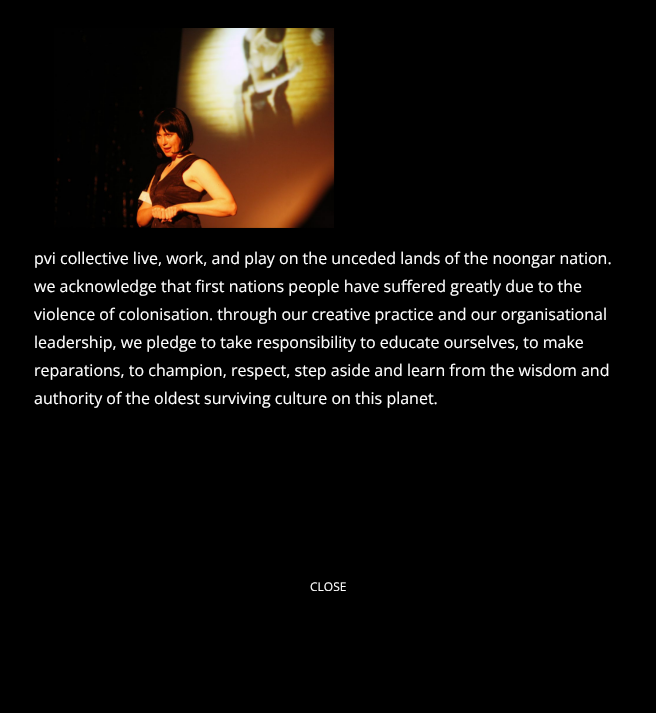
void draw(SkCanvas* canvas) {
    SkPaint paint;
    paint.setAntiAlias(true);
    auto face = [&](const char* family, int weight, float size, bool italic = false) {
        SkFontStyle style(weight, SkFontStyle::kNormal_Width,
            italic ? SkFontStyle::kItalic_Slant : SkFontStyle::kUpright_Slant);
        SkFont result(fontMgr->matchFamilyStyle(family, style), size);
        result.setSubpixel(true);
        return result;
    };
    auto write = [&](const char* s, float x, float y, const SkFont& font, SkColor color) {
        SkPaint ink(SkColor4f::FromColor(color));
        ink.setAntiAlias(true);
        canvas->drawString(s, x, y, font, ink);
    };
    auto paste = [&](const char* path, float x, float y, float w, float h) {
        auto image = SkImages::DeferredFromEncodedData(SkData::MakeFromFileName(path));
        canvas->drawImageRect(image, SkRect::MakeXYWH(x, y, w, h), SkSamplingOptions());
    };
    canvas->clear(SK_ColorBLACK);
    paste("pic1.png", 54, 28, 281, 200);
    auto kFont1 = face("Open Sans", 400, 16);
    write("pvi collective live, work, and play on the unceded lands of the noongar nation.", 34, 264, kFont1, SK_ColorWHITE);
    write("we acknowledge that first nations people have suffered greatly due to the", 34, 292, kFont1, SK_ColorWHITE);
    write("violence of colonisation. through our creative practice and our organisational", 34, 320, kFont1, SK_ColorWHITE);
    write("leadership, we pledge to take responsibility to educate ourselves, to make", 34, 348, kFont1, SK_ColorWHITE);
    write("reparations, to champion, respect, step aside and learn from the wisdom and", 34, 376, kFont1, SK_ColorWHITE);
    write("authority of the oldest surviving culture on this planet.", 34, 404, kFont1, SK_ColorWHITE);
    auto kFont2 = face("Open Sans", 400, 12);
    write("CLOSE", 310, 591, kFont2, SK_ColorWHITE);
}
